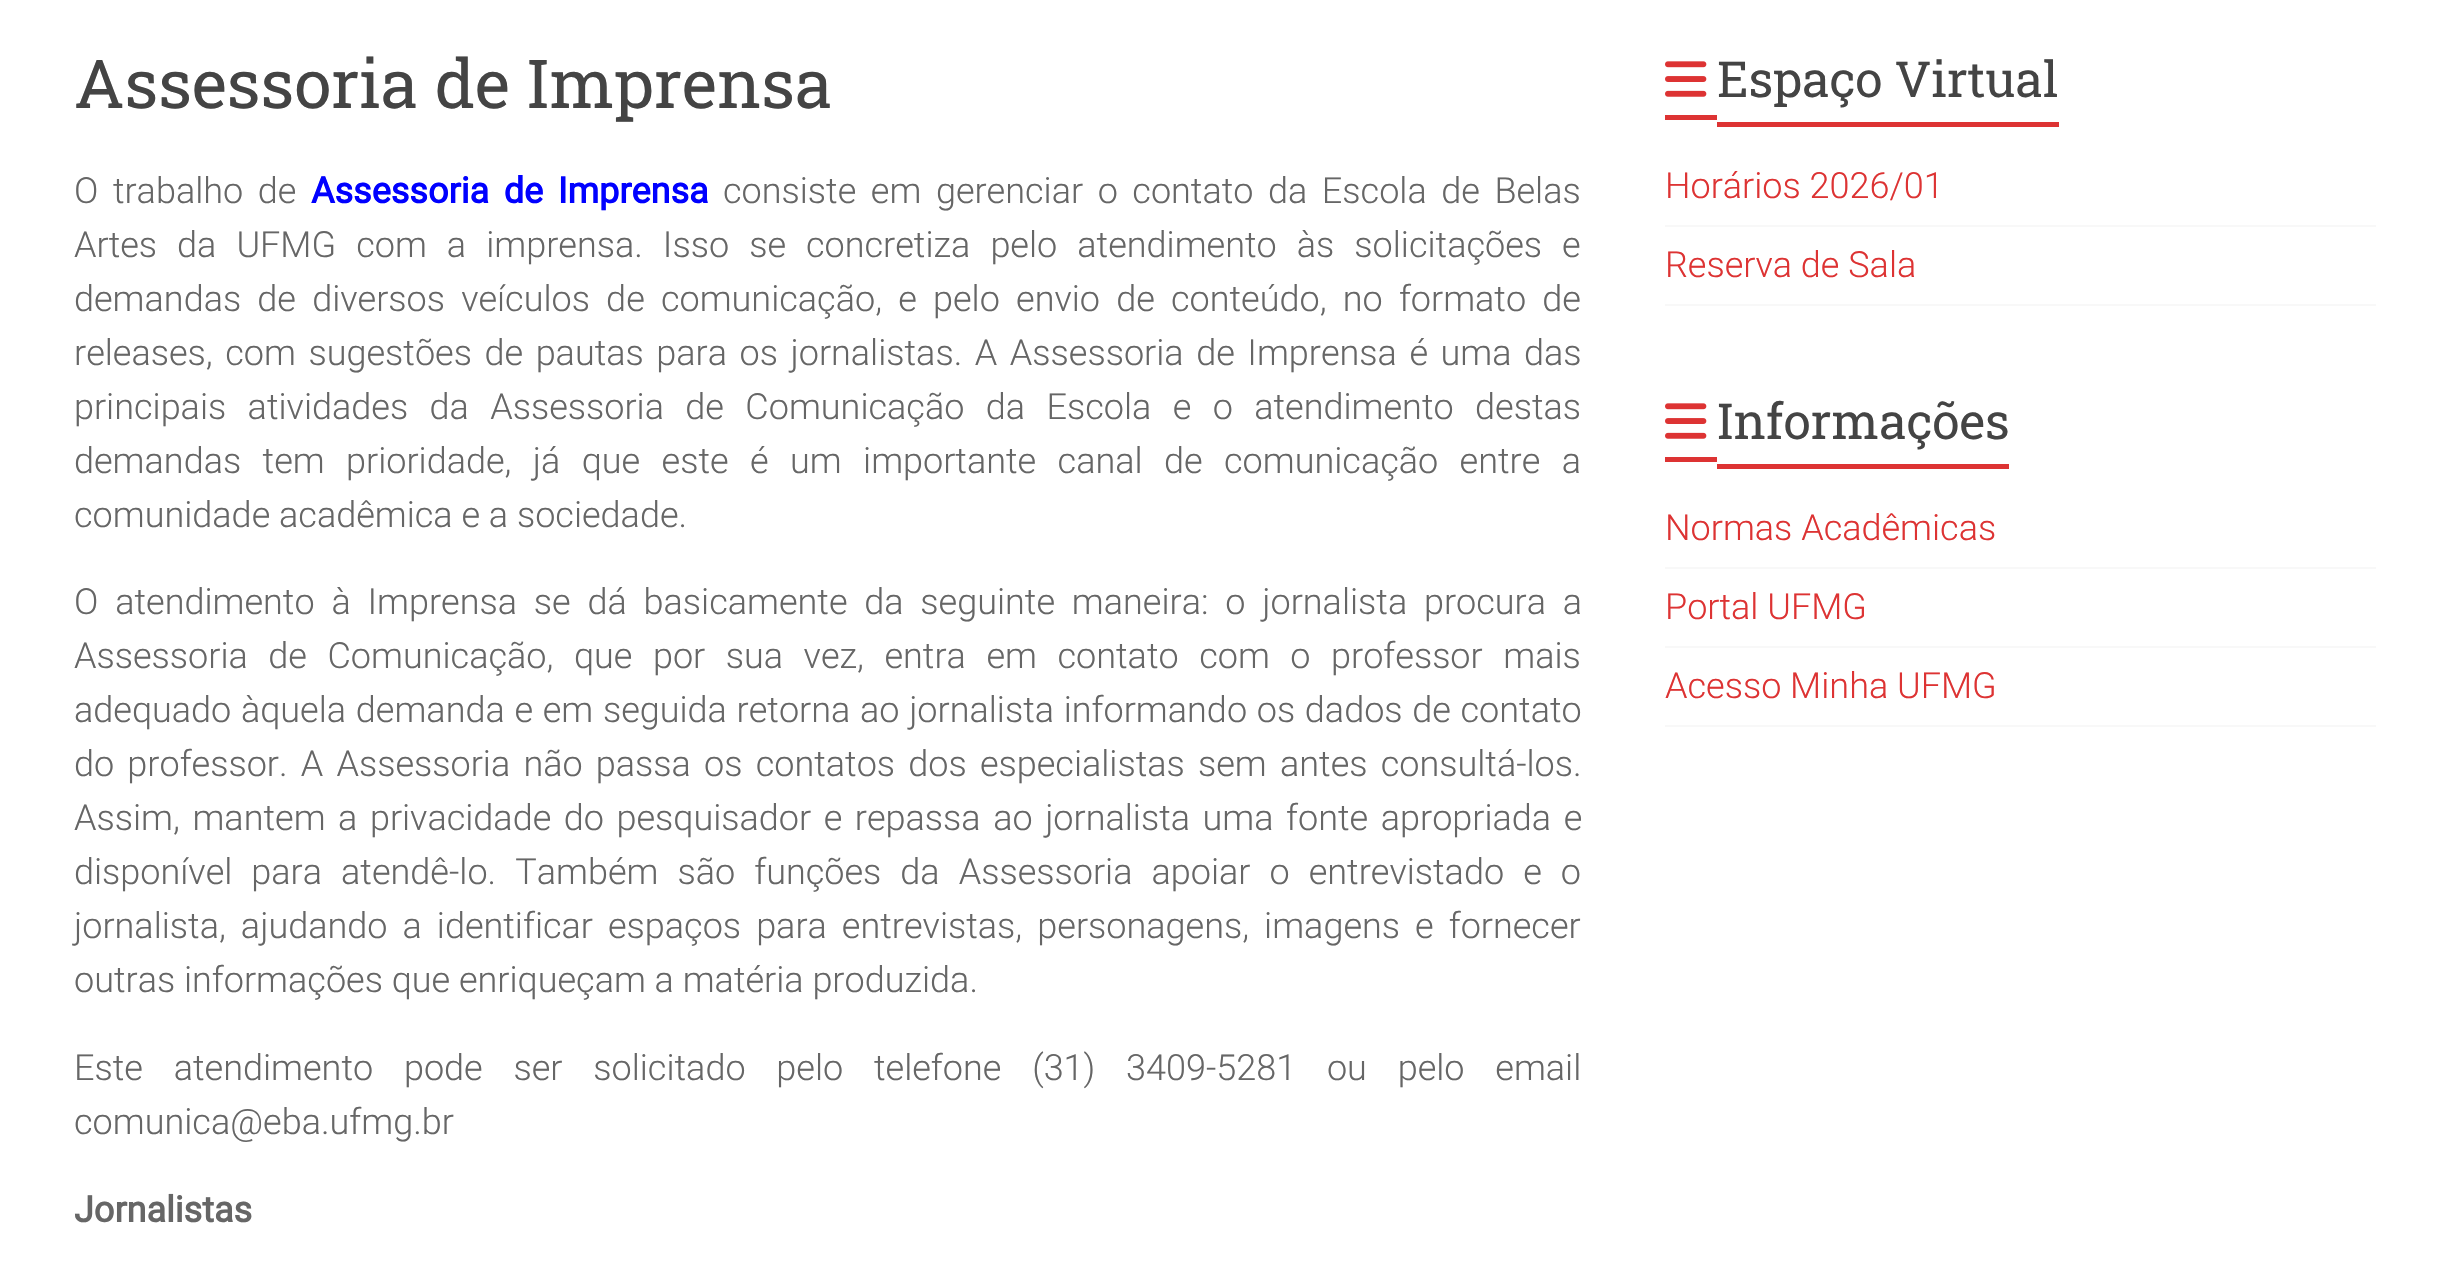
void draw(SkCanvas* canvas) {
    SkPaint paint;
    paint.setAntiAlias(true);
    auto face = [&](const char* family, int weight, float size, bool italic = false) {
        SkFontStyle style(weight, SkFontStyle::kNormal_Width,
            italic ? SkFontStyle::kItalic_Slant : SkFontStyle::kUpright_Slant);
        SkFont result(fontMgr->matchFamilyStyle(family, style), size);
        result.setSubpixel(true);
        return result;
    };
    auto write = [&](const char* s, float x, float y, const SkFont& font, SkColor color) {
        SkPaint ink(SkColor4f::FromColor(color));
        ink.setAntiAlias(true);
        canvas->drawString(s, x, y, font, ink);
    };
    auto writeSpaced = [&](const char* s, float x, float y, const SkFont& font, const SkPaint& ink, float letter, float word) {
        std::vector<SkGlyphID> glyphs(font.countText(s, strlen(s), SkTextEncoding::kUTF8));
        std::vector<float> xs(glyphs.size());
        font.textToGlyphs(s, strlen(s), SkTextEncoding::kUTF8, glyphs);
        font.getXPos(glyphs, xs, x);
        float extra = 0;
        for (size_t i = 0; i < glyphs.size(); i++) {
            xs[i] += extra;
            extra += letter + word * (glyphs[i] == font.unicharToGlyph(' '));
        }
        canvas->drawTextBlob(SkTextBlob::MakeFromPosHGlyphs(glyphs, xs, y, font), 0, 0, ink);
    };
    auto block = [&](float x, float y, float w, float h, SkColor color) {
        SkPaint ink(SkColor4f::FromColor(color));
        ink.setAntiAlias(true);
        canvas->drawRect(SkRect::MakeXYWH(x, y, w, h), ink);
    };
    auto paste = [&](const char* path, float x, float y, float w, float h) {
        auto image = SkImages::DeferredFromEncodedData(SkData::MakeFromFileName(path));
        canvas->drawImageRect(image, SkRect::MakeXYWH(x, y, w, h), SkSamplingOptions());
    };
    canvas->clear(SK_ColorWHITE);
    auto kFont1 = face("Roboto Slab", 400, 67.5f);
    write("Assessoria de Imprensa", 74, 108, kFont1, SkColorSetRGB(68, 68, 68));
    auto kFont2 = face("Roboto", 300, 36);
    paint.setColor(SkColorSetRGB(102, 102, 102));
    writeSpaced("O trabalho de", 74, 203, kFont2, paint, 0, 5.75f);
    auto kFont3 = face("Roboto", 700, 36);
    paint.setColor(SkColorSetRGB(0, 0, 255));
    writeSpaced("Assessoria de Imprensa", 311, 203, kFont3, paint, 0, 5.75f);
    paint.setColor(SkColorSetRGB(102, 102, 102));
    writeSpaced("consiste em gerenciar o contato da Escola de Belas", 723, 203, kFont2, paint, 0, 5.75f);
    writeSpaced("Artes da UFMG com a imprensa. Isso se concretiza pelo atendimento às solicitações e", 74, 257, kFont2, paint, 0, 11.25f);
    writeSpaced("demandas de diversos veículos de comunicação, e pelo envio de conteúdo, no formato de", 74, 311, kFont2, paint, 0, 7.4f);
    writeSpaced("releases, com sugestões de pautas para os jornalistas. A Assessoria de Imprensa é uma das", 74, 365, kFont2, paint, 0, 3.75f);
    writeSpaced("principais atividades da Assessoria de Comunicação da Escola e o atendimento destas", 74, 419, kFont2, paint, 0, 12.6f);
    writeSpaced("demandas tem prioridade, já que este é um importante canal de comunicação entre a", 74, 473, kFont2, paint, 0, 12.6f);
    write("comunidade acadêmica e a sociedade.", 74, 527, kFont2, SkColorSetRGB(102, 102, 102));
    writeSpaced("O atendimento à Imprensa se dá basicamente da seguinte maneira: o jornalista procura a", 74, 614, kFont2, paint, 0, 8);
    writeSpaced("Assessoria de Comunicação, que por sua vez, entra em contato com o professor mais", 74, 668, kFont2, paint, 0, 11.75f);
    writeSpaced("adequado àquela demanda e em seguida retorna ao jornalista informando os dados de contato", 74, 722, kFont2, paint, 0, 0.9f);
    writeSpaced("do professor. A Assessoria não passa os contatos dos especialistas sem antes consultá-los.", 74, 776, kFont2, paint, 0, 4.4f);
    writeSpaced("Assim, mantem a privacidade do pesquisador e repassa ao jornalista uma fonte apropriada e", 74, 830, kFont2, paint, 0, 3.75f);
    writeSpaced("disponível para atendê-lo. Também são funções da Assessoria apoiar o entrevistado e o", 74, 884, kFont2, paint, 0, 10.25f);
    writeSpaced("jornalista, ajudando a identificar espaços para entrevistas, personagens, imagens e fornecer", 74, 938, kFont2, paint, 0, 6.25f);
    write("outras informações que enriqueçam a matéria produzida.", 74, 992, kFont2, SkColorSetRGB(102, 102, 102));
    writeSpaced("Este atendimento pode ser solicitado pelo telefone (31) 3409-5281 ou pelo email", 74, 1080, kFont2, paint, 0, 22);
    write("comunica@eba.ufmg.br", 74, 1134, kFont2, SkColorSetRGB(102, 102, 102));
    write("Jornalistas", 74, 1222, kFont3, SkColorSetRGB(102, 102, 102));
    paste("pic1.png", 1665, 61, 42, 36);
    auto kFont4 = face("Roboto Slab", 400, 49.5f);
    write("Espaço Virtual", 1717, 97, kFont4, SkColorSetRGB(68, 68, 68));
    block(1665, 115, 52, 5, SkColorSetRGB(221, 51, 51));
    block(1717, 122, 342, 5, SkColorSetRGB(221, 51, 51));
    block(1665, 225, 711, 2, SkColorSetRGB(248, 248, 248));
    write("Horários 2026/01", 1665, 198, kFont2, SkColorSetRGB(221, 51, 51));
    block(1665, 304, 711, 2, SkColorSetRGB(248, 248, 248));
    write("Reserva de Sala", 1665, 277, kFont2, SkColorSetRGB(221, 51, 51));
    paste("pic1.png", 1665, 403, 42, 36);
    write("Informações", 1717, 439, kFont4, SkColorSetRGB(68, 68, 68));
    block(1665, 457, 52, 5, SkColorSetRGB(221, 51, 51));
    block(1717, 464, 292, 5, SkColorSetRGB(221, 51, 51));
    block(1665, 567, 711, 2, SkColorSetRGB(248, 248, 248));
    write("Normas Acadêmicas", 1665, 540, kFont2, SkColorSetRGB(221, 51, 51));
    block(1665, 646, 711, 2, SkColorSetRGB(248, 248, 248));
    write("Portal UFMG", 1665, 619, kFont2, SkColorSetRGB(221, 51, 51));
    block(1665, 725, 711, 2, SkColorSetRGB(248, 248, 248));
    write("Acesso Minha UFMG", 1665, 698, kFont2, SkColorSetRGB(221, 51, 51));
}
